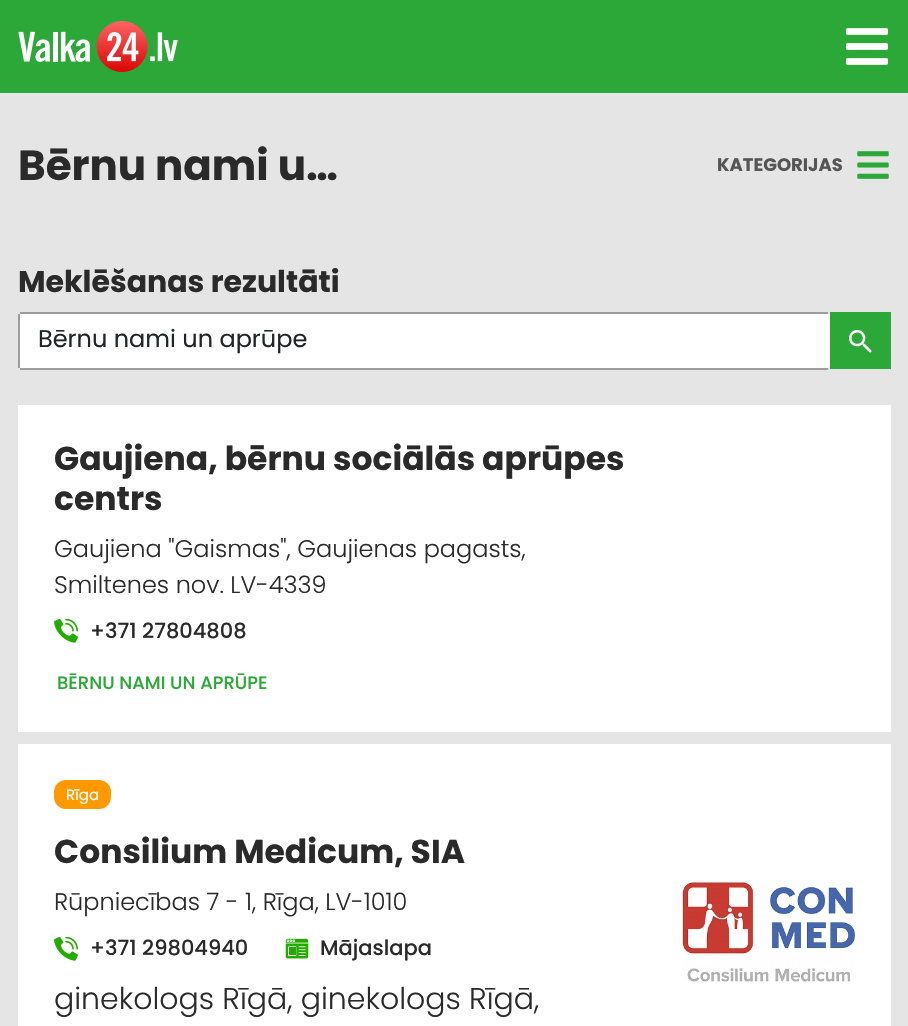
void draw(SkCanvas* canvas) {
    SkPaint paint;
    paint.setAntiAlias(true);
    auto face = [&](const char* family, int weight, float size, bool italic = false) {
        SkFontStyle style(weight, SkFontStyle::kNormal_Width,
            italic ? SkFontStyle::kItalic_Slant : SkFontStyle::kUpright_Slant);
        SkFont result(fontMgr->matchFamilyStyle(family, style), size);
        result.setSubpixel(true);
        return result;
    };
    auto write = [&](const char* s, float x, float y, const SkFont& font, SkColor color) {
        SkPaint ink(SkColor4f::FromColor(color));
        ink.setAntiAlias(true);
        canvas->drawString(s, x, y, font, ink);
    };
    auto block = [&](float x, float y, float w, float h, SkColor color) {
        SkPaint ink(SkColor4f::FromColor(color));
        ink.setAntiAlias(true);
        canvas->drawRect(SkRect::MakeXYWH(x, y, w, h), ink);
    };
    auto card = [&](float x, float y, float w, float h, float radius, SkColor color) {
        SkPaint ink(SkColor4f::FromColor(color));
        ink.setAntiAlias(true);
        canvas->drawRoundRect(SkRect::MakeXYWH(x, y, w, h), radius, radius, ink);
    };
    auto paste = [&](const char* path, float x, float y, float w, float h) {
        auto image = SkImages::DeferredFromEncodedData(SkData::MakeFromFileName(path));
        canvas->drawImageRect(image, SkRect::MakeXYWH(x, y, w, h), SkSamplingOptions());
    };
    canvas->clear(SkColorSetRGB(229, 229, 229));
    block(0, 0, 908, 93, SkColorSetRGB(43, 168, 55));
    paste("pic1.png", 18, 21, 160, 51);
    paste("pic2.png", 846, 28, 42, 37);
    auto kFont1 = face("Poppins", 700, 42);
    write("Bērnu nami u…", 18, 180, kFont1, SkColorSetRGB(42, 42, 42));
    auto kFont2 = face("Poppins", 700, 18);
    write("KATEGORIJAS", 717, 171, kFont2, SkColorSetRGB(85, 85, 85));
    paste("pic3.png", 857, 151, 32, 28);
    auto kFont3 = face("Poppins", 700, 30);
    write("Meklēšanas rezultāti", 18, 292, kFont3, SkColorSetRGB(42, 42, 42));
    paint.setColor(SK_ColorWHITE);
    canvas->drawPath(SkPathBuilder().moveTo(21, 314).lineTo(826, 314).cubicTo(828, 314, 830, 314, 830, 315).lineTo(830, 366).cubicTo(830, 367, 828, 368, 826, 368).lineTo(21, 368).cubicTo(20, 368, 20, 367, 20, 366).lineTo(20, 315).cubicTo(20, 314, 20, 314, 21, 314).close().detach(), paint);
    block(20, 312, 808, 2, SkColorSetRGB(157, 157, 157));
    block(20, 368, 808, 2, SkColorSetRGB(157, 157, 157));
    block(18, 314, 2, 54, SkColorSetRGB(157, 157, 157));
    auto kFont4 = face("Poppins", 400, 24);
    write("Bērnu nami un aprūpe", 38, 347, kFont4, SkColorSetRGB(33, 37, 41));
    block(830, 312, 61, 57, SkColorSetRGB(43, 168, 55));
    paste("pic4.png", 849, 330, 23, 23);
    block(18, 405, 873, 327, SK_ColorWHITE);
    auto kFont5 = face("Poppins", 700, 33);
    write("Gaujiena, bērnu sociālās aprūpes", 54, 470, kFont5, SkColorSetRGB(42, 42, 42));
    write("centrs", 54, 510, kFont5, SkColorSetRGB(42, 42, 42));
    auto kFont6 = face("Poppins", 300, 24);
    write("Gaujiena \"Gaismas\", Gaujienas pagasts,", 54, 557, kFont6, SkColorSetRGB(42, 42, 42));
    write("Smiltenes nov. LV-4339", 54, 593, kFont6, SkColorSetRGB(42, 42, 42));
    paste("pic5.png", 54, 619, 24, 24);
    auto kFont7 = face("Poppins", 500, 21);
    write("+371 27804808", 90, 638, kFont7, SkColorSetRGB(42, 42, 42));
    auto kFont8 = face("Poppins", 500, 18);
    write("BĒRNU NAMI UN APRŪPE", 57, 689, kFont8, SkColorSetRGB(43, 168, 55));
    block(18, 744, 873, 282, SK_ColorWHITE);
    card(54, 780, 57, 29, 12, SkColorSetRGB(255, 153, 0));
    auto kFont9 = face("Poppins", 400, 15);
    write("Rīga", 66, 800, kFont9, SK_ColorWHITE);
    write("Consilium Medicum, SIA", 54, 863, kFont5, SkColorSetRGB(42, 42, 42));
    write("Rūpniecības 7 - 1, Rīga, LV-1010", 54, 910, kFont6, SkColorSetRGB(42, 42, 42));
    paste("pic5.png", 54, 937, 24, 24);
    write("+371 29804940", 90, 955, kFont7, SkColorSetRGB(42, 42, 42));
    paste("pic6.png", 285, 938, 24, 21);
    write("Mājaslapa", 320, 955, kFont7, SkColorSetRGB(42, 42, 42));
    auto kFont10 = face("Poppins", 300, 30);
    write("ginekologs Rīgā, ginekologs Rīgā,", 54, 1009, kFont10, SkColorSetRGB(42, 42, 42));
    paste("pic7.png", 682, 881, 173, 101);
}
